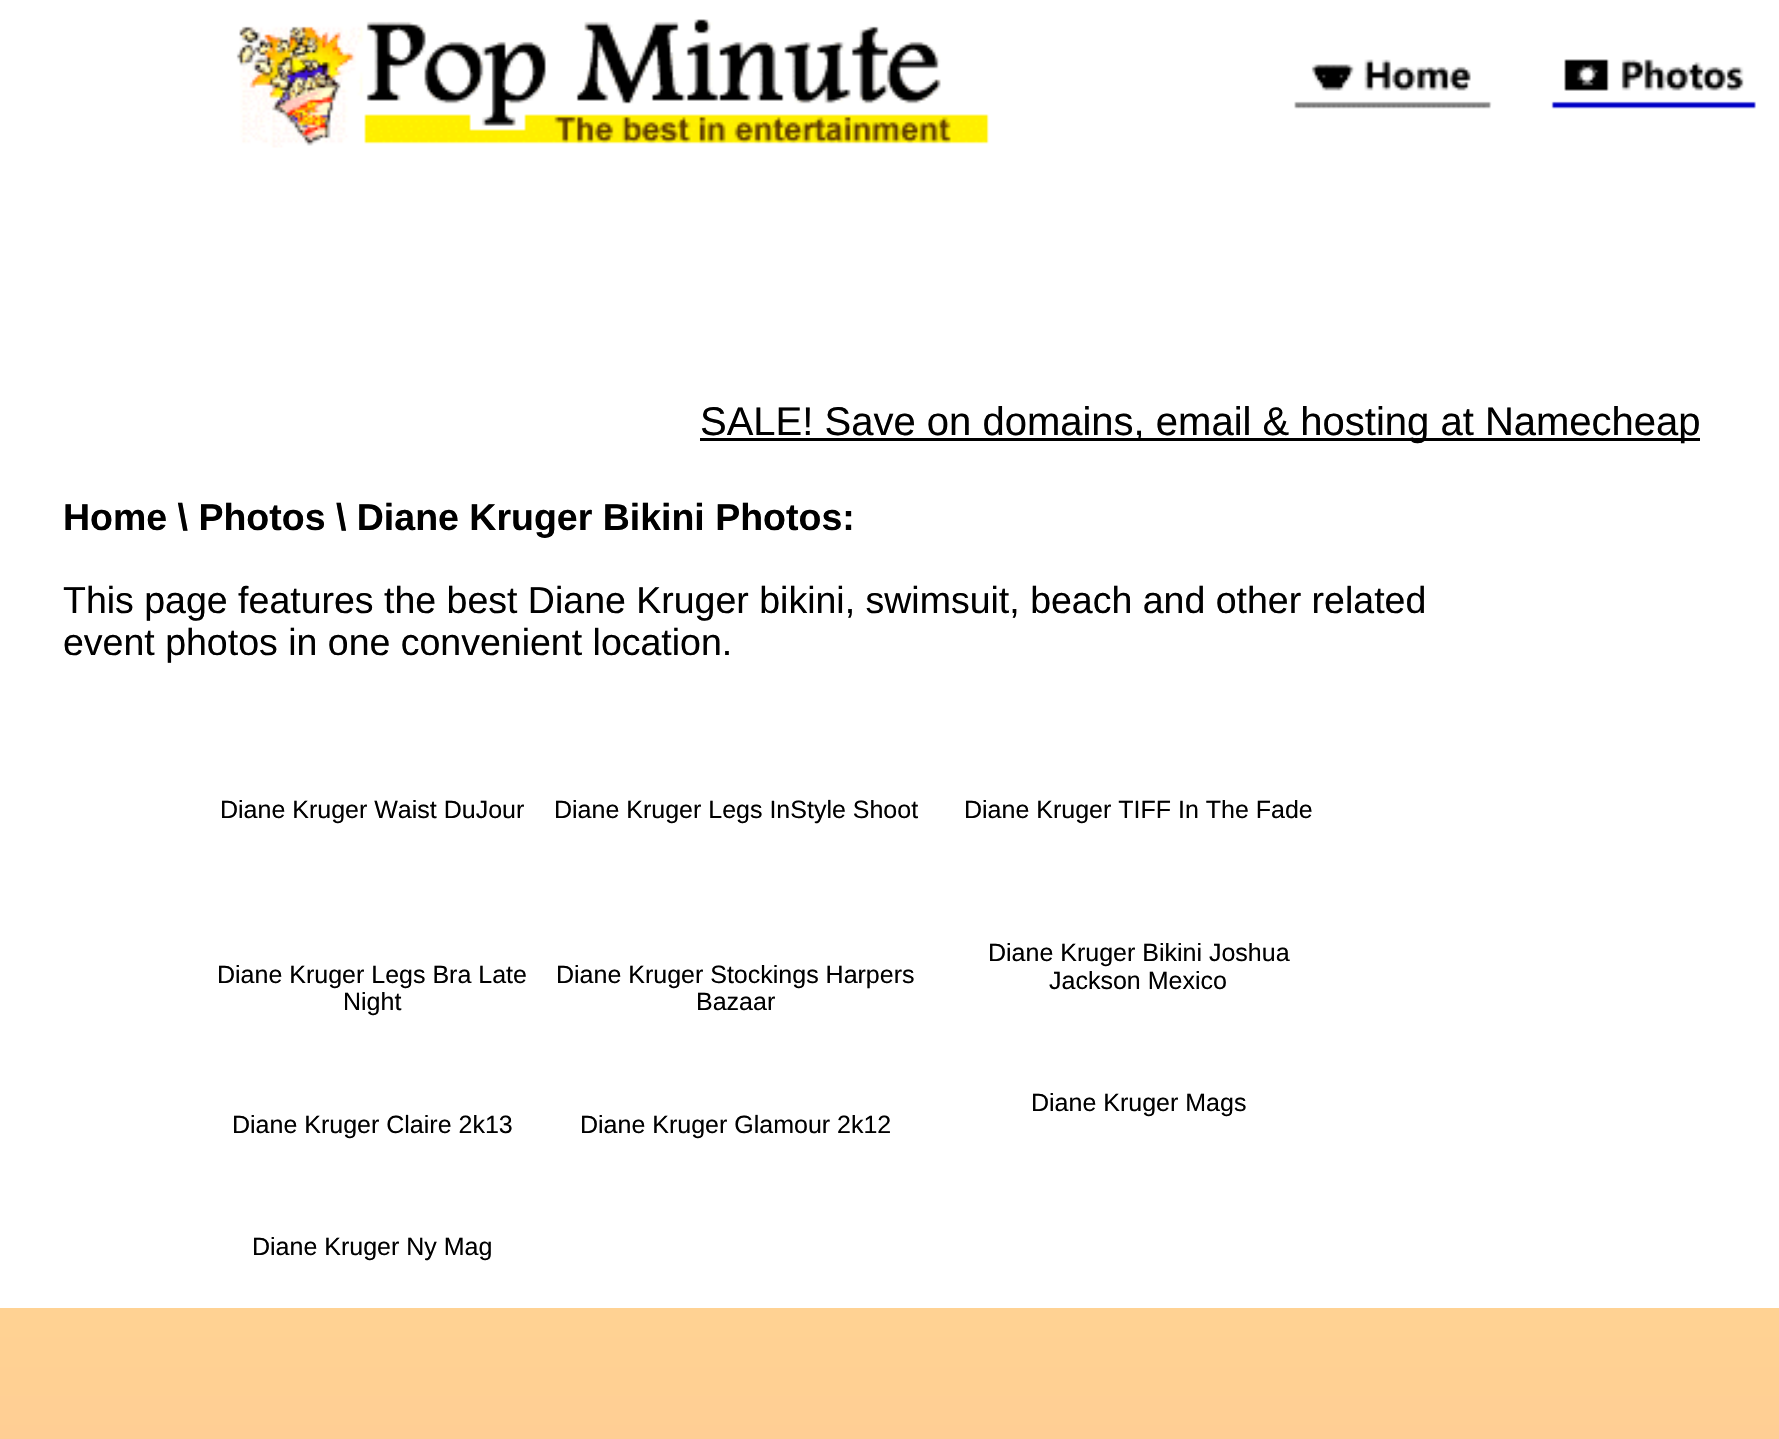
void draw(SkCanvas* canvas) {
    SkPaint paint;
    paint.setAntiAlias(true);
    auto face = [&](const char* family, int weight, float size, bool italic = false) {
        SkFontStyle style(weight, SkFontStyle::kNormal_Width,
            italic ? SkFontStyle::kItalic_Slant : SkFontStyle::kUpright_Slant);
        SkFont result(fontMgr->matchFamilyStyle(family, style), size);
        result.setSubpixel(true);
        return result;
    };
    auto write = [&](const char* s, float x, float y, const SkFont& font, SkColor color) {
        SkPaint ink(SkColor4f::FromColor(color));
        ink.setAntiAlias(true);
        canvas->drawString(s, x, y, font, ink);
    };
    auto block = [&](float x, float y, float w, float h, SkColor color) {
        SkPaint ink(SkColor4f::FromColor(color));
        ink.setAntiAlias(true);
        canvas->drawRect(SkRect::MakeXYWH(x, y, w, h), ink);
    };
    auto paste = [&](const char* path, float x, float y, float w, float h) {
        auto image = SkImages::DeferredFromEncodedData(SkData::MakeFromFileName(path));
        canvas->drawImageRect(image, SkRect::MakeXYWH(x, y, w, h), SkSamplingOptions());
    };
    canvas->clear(SK_ColorWHITE);
    {
        const SkColor colors[] = {SkColorSetRGB(255, 255, 132), SkColorSetRGB(255, 206, 148)};
        const float stops[] = {0, 1};
        const SkPoint ends[] = {{890, 0}, {890, 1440}};
        paint.setShader(SkGradientShader::MakeLinear(ends, colors, stops, 2, SkTileMode::kClamp));
        paint.setAlpha(255);
    }
    canvas->drawRect(SkRect::MakeXYWH(0, 1308, 1779, 131), paint);
    paste("pic1.png", 236, 19, 753, 129);
    paste("pic2.png", 1294, 59, 198, 50);
    paste("pic3.png", 1551, 59, 205, 50);
    block(700, 438, 1000, 3, SK_ColorBLACK);
    auto kFont1 = face("Liberation Sans", 400, 40);
    write("SALE! Save on domains, email & hosting at Namecheap", 700, 435, kFont1, SK_ColorBLACK);
    auto kFont2 = face("Liberation Sans", 700, 37.5f);
    write("Home \\ Photos \\ Diane Kruger Bikini Photos:", 63, 530, kFont2, SK_ColorBLACK);
    auto kFont3 = face("Liberation Sans", 400, 37.5f);
    write("This page features the best Diane Kruger bikini, swimsuit, beach and other related", 63, 613, kFont3, SK_ColorBLACK);
    write("event photos in one convenient location.", 63, 655, kFont3, SK_ColorBLACK);
    auto kFont4 = face("Liberation Sans", 400, 25);
    write("Diane Kruger Waist DuJour", 220, 818, kFont4, SK_ColorBLACK);
    write("Diane Kruger Legs InStyle Shoot", 554, 818, kFont4, SK_ColorBLACK);
    write("Diane Kruger TIFF In The Fade", 964, 818, kFont4, SK_ColorBLACK);
    write("Diane Kruger Legs Bra Late", 217, 983, kFont4, SK_ColorBLACK);
    write("Night", 343, 1010, kFont4, SK_ColorBLACK);
    write("Diane Kruger Stockings Harpers", 556, 983, kFont4, SK_ColorBLACK);
    write("Bazaar", 696, 1010, kFont4, SK_ColorBLACK);
    write("Diane Kruger Bikini Joshua", 988, 961, kFont4, SK_ColorBLACK);
    write("Jackson Mexico", 1049, 989, kFont4, SK_ColorBLACK);
    write("Diane Kruger Mags", 1031, 1111, kFont4, SK_ColorBLACK);
    write("Diane Kruger Claire 2k13", 232, 1133, kFont4, SK_ColorBLACK);
    write("Diane Kruger Glamour 2k12", 580, 1133, kFont4, SK_ColorBLACK);
    write("Diane Kruger Ny Mag", 252, 1255, kFont4, SK_ColorBLACK);
}
